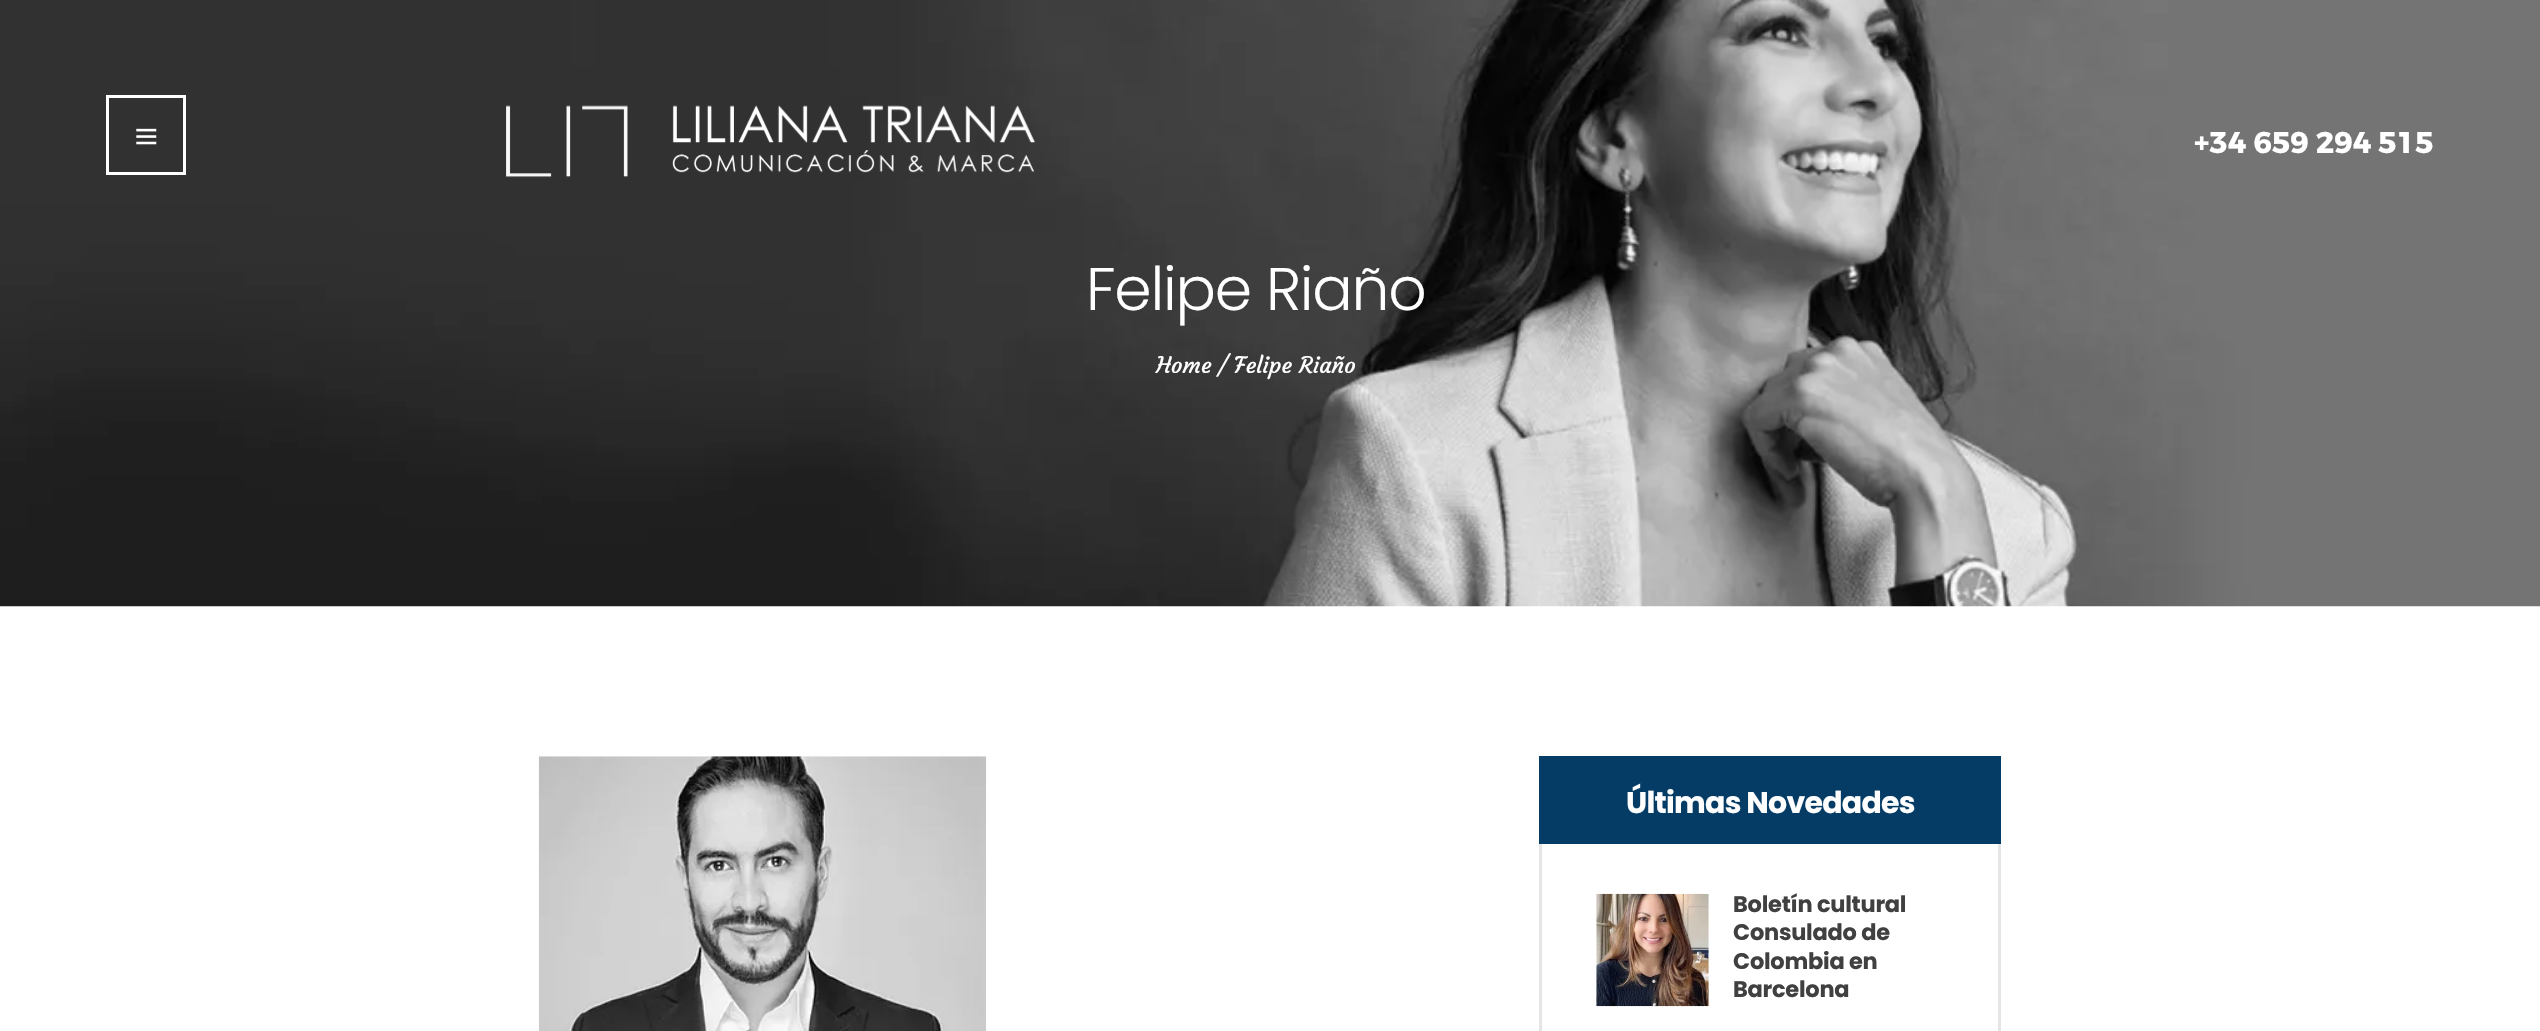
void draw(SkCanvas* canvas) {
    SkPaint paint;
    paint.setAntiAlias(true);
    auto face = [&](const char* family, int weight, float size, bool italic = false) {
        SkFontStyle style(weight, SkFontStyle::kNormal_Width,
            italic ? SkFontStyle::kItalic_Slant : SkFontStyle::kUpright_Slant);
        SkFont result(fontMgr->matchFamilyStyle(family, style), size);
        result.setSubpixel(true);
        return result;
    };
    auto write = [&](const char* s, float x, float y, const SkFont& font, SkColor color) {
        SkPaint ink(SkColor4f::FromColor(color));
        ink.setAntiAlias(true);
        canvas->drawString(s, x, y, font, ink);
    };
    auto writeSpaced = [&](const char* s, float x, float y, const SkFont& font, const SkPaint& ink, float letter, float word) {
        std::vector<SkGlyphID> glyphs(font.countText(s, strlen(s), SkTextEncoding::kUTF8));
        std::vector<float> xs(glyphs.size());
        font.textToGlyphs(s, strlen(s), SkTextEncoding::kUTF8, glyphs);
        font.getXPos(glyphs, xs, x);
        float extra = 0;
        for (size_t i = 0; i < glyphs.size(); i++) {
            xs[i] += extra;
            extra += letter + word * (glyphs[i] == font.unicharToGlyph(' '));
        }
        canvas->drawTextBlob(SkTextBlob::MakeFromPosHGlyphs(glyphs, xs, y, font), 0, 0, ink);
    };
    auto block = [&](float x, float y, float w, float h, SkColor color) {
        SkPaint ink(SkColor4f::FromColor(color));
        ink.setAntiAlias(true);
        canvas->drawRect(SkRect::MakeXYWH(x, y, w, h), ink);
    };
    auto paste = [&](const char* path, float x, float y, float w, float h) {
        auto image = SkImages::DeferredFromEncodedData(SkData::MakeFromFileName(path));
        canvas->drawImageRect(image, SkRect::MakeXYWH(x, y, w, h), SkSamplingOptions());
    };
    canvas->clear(SK_ColorWHITE);
    paste("pic1.png", 0, 0, 2540, 607);
    paint.setStyle(SkPaint::kStroke_Style);
    paint.setStrokeWidth(3);
    paint.setColor(SK_ColorWHITE);
    canvas->drawRect(SkRect::MakeXYWH(107.5f, 96.5f, 77, 77), paint);
    paste("pic2.png", 136, 128, 21, 17);
    paste("pic3.png", 506, 105, 529, 73);
    auto kFont1 = face("Montserrat", 700, 30);
    write("+34 659 294 515", 2194, 153, kFont1, SK_ColorWHITE);
    auto kFont2 = face("Poppins", 300, 60);
    paint.setStyle(SkPaint::kFill_Style);
    writeSpaced("Felipe Riaño", 1086, 310, kFont2, paint, -1.25f, 0);
    auto kFont3 = face("Courgette", 400, 22.5f);
    write("Home", 1156, 373, kFont3, SK_ColorWHITE);
    write("/", 1218, 373, kFont3, SK_ColorWHITE);
    write("Felipe Riaño", 1234, 373, kFont3, SK_ColorWHITE);
    paste("pic4.png", 538, 756, 449, 275);
    paint.setStyle(SkPaint::kStroke_Style);
    paint.setColor(SkColorSetRGB(229, 229, 229));
    canvas->drawRect(SkRect::MakeXYWH(1540.5f, 757.5f, 459, 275), paint);
    block(1539, 756, 462, 88, SkColorSetRGB(4, 60, 101));
    auto kFont4 = face("Poppins", 700, 30);
    paint.setStyle(SkPaint::kFill_Style);
    paint.setColor(SK_ColorWHITE);
    writeSpaced("Últimas Novedades", 1626, 813, kFont4, paint, -0.75f, 0);
    paste("pic5.png", 1596, 893, 113, 114);
    auto kFont5 = face("Poppins", 700, 22.5f);
    paint.setColor(SkColorSetRGB(64, 64, 64));
    writeSpaced("Boletín cultural", 1733, 912, kFont5, paint, -0.25f, 0);
    writeSpaced("Consulado de", 1733, 940, kFont5, paint, -0.25f, 0);
    writeSpaced("Colombia en", 1733, 969, kFont5, paint, -0.25f, 0);
    writeSpaced("Barcelona", 1733, 997, kFont5, paint, -0.25f, 0);
}
